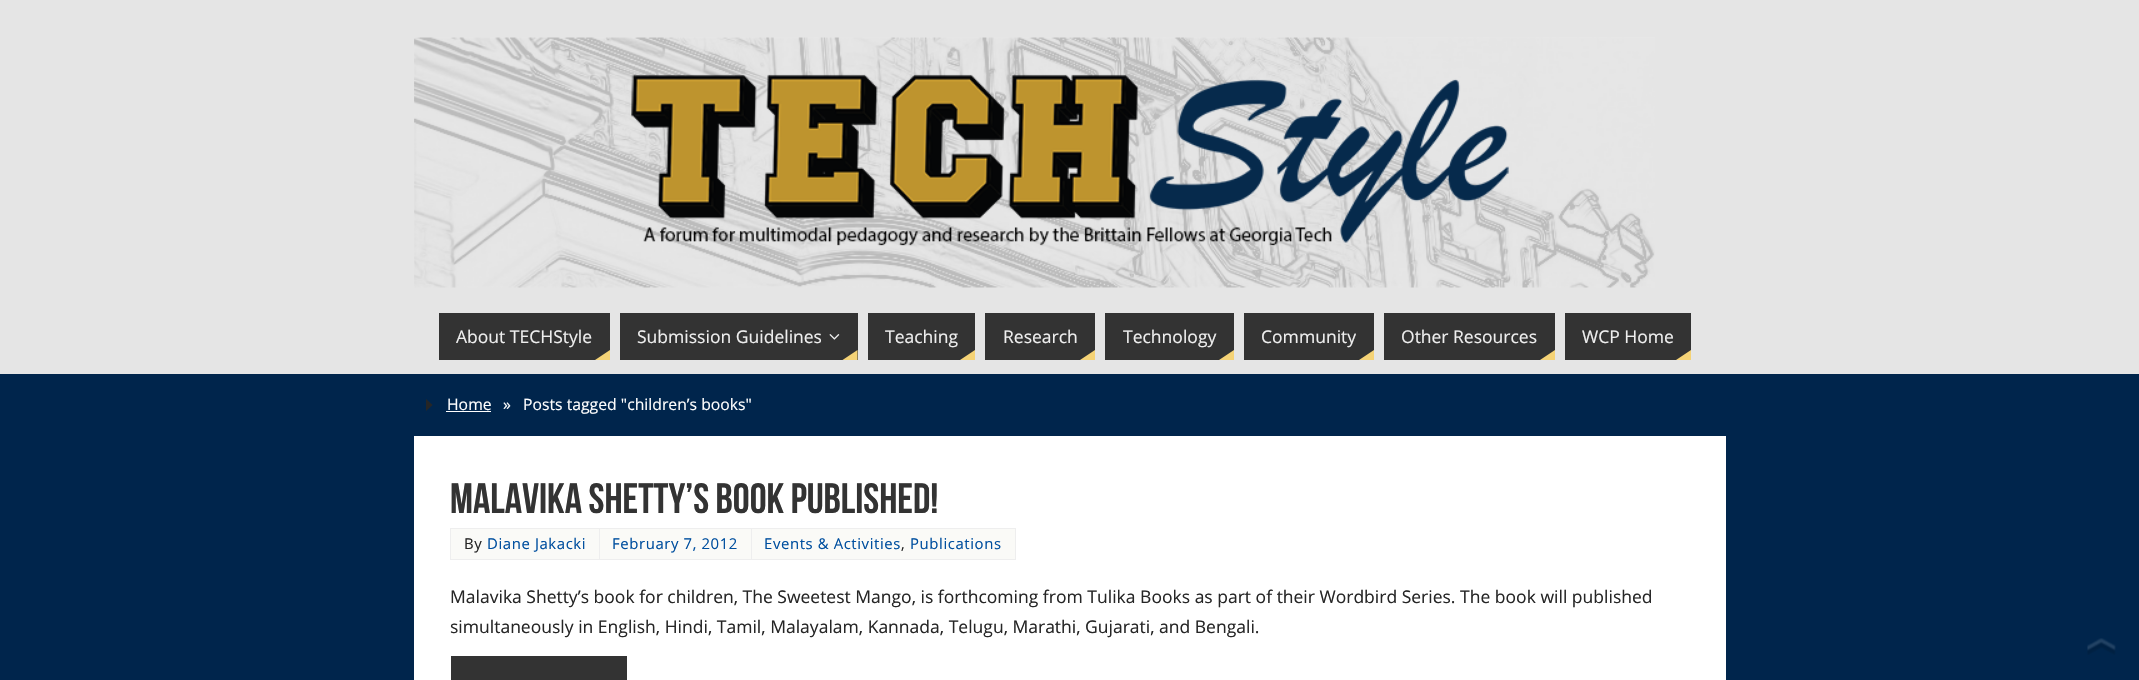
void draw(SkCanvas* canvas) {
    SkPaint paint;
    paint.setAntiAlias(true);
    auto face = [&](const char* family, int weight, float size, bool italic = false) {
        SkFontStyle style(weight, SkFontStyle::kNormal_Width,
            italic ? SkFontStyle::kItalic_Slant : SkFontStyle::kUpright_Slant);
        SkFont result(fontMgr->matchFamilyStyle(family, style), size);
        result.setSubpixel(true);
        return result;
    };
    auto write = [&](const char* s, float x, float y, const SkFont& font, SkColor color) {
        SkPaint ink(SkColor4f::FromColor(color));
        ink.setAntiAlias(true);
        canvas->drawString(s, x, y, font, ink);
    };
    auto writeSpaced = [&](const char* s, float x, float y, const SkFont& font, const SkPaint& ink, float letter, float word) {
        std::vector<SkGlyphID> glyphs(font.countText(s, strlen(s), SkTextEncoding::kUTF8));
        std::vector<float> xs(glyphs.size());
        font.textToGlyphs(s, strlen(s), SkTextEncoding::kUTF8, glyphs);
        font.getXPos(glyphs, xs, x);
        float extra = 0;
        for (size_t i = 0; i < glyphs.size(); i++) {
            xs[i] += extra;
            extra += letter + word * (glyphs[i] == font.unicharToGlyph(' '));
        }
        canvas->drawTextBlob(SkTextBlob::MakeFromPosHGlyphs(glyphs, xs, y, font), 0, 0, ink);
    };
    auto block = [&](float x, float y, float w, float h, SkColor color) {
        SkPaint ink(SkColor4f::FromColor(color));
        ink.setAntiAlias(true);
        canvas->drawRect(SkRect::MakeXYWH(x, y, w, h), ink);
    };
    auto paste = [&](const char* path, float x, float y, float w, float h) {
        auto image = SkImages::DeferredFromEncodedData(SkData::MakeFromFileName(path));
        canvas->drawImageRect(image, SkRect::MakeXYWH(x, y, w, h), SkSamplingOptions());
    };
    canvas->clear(SkColorSetRGB(0, 37, 76));
    block(0, 0, 2139, 374, SkColorSetRGB(229, 229, 229));
    paste("pic1.png", 414, 37, 1241, 251);
    block(439, 313, 171, 47, SkColorSetRGB(51, 51, 51));
    auto kFont1 = face("Open Sans", 400, 17.5f);
    write("About TECHStyle", 456, 343, kFont1, SkColorSetRGB(238, 238, 238));
    paint.setColor(SkColorSetRGB(245, 211, 118));
    canvas->drawPath(SkPathBuilder().moveTo(610, 360).lineTo(595, 360).lineTo(610, 350).close().detach(), paint);
    block(620, 313, 238, 47, SkColorSetRGB(51, 51, 51));
    write("Submission Guidelines", 637, 343, kFont1, SkColorSetRGB(238, 238, 238));
    paste("pic2.png", 829, 334, 11, 6);
    canvas->drawPath(SkPathBuilder().moveTo(857.5f, 360).lineTo(842.5f, 360).lineTo(857.5f, 350).close().detach(), paint);
    block(868, 313, 107, 47, SkColorSetRGB(51, 51, 51));
    write("Teaching", 885, 343, kFont1, SkColorSetRGB(238, 238, 238));
    canvas->drawPath(SkPathBuilder().moveTo(975, 360).lineTo(960, 360).lineTo(975, 350).close().detach(), paint);
    block(985, 313, 110, 47, SkColorSetRGB(51, 51, 51));
    write("Research", 1003, 343, kFont1, SkColorSetRGB(238, 238, 238));
    canvas->drawPath(SkPathBuilder().moveTo(1095, 360).lineTo(1080, 360).lineTo(1095, 350).close().detach(), paint);
    block(1105, 313, 129, 47, SkColorSetRGB(51, 51, 51));
    write("Technology", 1123, 343, kFont1, SkColorSetRGB(238, 238, 238));
    canvas->drawPath(SkPathBuilder().moveTo(1234, 360).lineTo(1219, 360).lineTo(1234, 350).close().detach(), paint);
    block(1244, 313, 130, 47, SkColorSetRGB(51, 51, 51));
    write("Community", 1261, 343, kFont1, SkColorSetRGB(238, 238, 238));
    canvas->drawPath(SkPathBuilder().moveTo(1374, 360).lineTo(1359, 360).lineTo(1374, 350).close().detach(), paint);
    block(1384, 313, 171, 47, SkColorSetRGB(51, 51, 51));
    write("Other Resources", 1401, 343, kFont1, SkColorSetRGB(238, 238, 238));
    canvas->drawPath(SkPathBuilder().moveTo(1555, 360).lineTo(1540, 360).lineTo(1555, 350).close().detach(), paint);
    block(1565, 313, 126, 47, SkColorSetRGB(51, 51, 51));
    write("WCP Home", 1582, 343, kFont1, SkColorSetRGB(238, 238, 238));
    canvas->drawPath(SkPathBuilder().moveTo(1691, 360).lineTo(1676, 360).lineTo(1691, 350).close().detach(), paint);
    paint.setColor(SkColorSetRGB(38, 38, 38));
    canvas->drawPath(SkPathBuilder().moveTo(426, 411).lineTo(426, 399).lineTo(432.5f, 405).close().detach(), paint);
    auto kFont2 = face("Open Sans", 400, 15.75f);
    write("Home", 447, 410, kFont2, SK_ColorWHITE);
    block(446, 411, 45, 1, SK_ColorWHITE);
    auto kFont3 = face("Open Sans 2", 400, 15.75f);
    write("»", 503, 410, kFont3, SK_ColorWHITE);
    write("Posts tagged \"children’s books\"", 523, 410, kFont2, SK_ColorWHITE);
    block(414, 436, 1312, 244, SK_ColorWHITE);
    auto kFont4 = face("Bebas Neue", 400, 42.5f);
    write("Malavika Shetty’s book published!", 450, 513, kFont4, SkColorSetRGB(51, 51, 51));
    paint.setColor(SkColorSetRGB(250, 250, 247));
    canvas->drawRect(SkRect::MakeXYWH(450.5f, 528.5f, 149, 31), paint);
    paint.setStyle(SkPaint::kStroke_Style);
    paint.setStrokeWidth(1);
    paint.setColor(SkColorSetRGB(238, 238, 238));
    canvas->drawRect(SkRect::MakeXYWH(450.5f, 528.5f, 149, 31), paint);
    auto kFont5 = face("Open Sans", 400, 14.9f);
    paint.setStyle(SkPaint::kFill_Style);
    paint.setColor(SkColorSetRGB(38, 38, 38));
    writeSpaced("By", 464, 549, kFont5, paint, 0.6f, 0);
    paint.setColor(SkColorSetRGB(0, 79, 159));
    writeSpaced("Diane Jakacki", 487, 549, kFont5, paint, 0.6f, 0);
    block(600, 529, 151, 30, SkColorSetRGB(250, 250, 247));
    paint.setStyle(SkPaint::kStroke_Style);
    paint.setColor(SkColorSetRGB(238, 238, 238));
    canvas->drawRect(SkRect::MakeXYWH(599.5f, 528.5f, 153, 31), paint);
    paint.setStyle(SkPaint::kFill_Style);
    paint.setColor(SkColorSetRGB(0, 79, 159));
    writeSpaced("February 7, 2012", 612, 549, kFont5, paint, 0.6f, 0);
    paint.setColor(SkColorSetRGB(250, 250, 247));
    canvas->drawRect(SkRect::MakeXYWH(751.5f, 528.5f, 264, 31), paint);
    paint.setStyle(SkPaint::kStroke_Style);
    paint.setColor(SkColorSetRGB(238, 238, 238));
    canvas->drawRect(SkRect::MakeXYWH(751.5f, 528.5f, 264, 31), paint);
    paint.setStyle(SkPaint::kFill_Style);
    paint.setColor(SkColorSetRGB(0, 79, 159));
    writeSpaced("Events & Activities", 764, 549, kFont5, paint, 0.6f, 0);
    paint.setColor(SkColorSetRGB(38, 38, 38));
    writeSpaced(",", 901, 549, kFont5, paint, 0.6f, 0);
    paint.setColor(SkColorSetRGB(0, 79, 159));
    writeSpaced("Publications", 910, 549, kFont5, paint, 0.6f, 0);
    write("Malavika Shetty’s book for children, The Sweetest Mango, is forthcoming from Tulika Books as part of their Wordbird Series. The book will published", 450, 603, kFont1, SkColorSetRGB(38, 38, 38));
    write("simultaneously in English, Hindi, Tamil, Malayalam, Kannada, Telugu, Marathi, Gujarati, and Bengali.", 450, 633, kFont1, SkColorSetRGB(38, 38, 38));
    block(451, 656, 176, 24, SkColorSetRGB(51, 51, 51));
    paste("pic3.png", 2087, 638, 29, 17);
}
